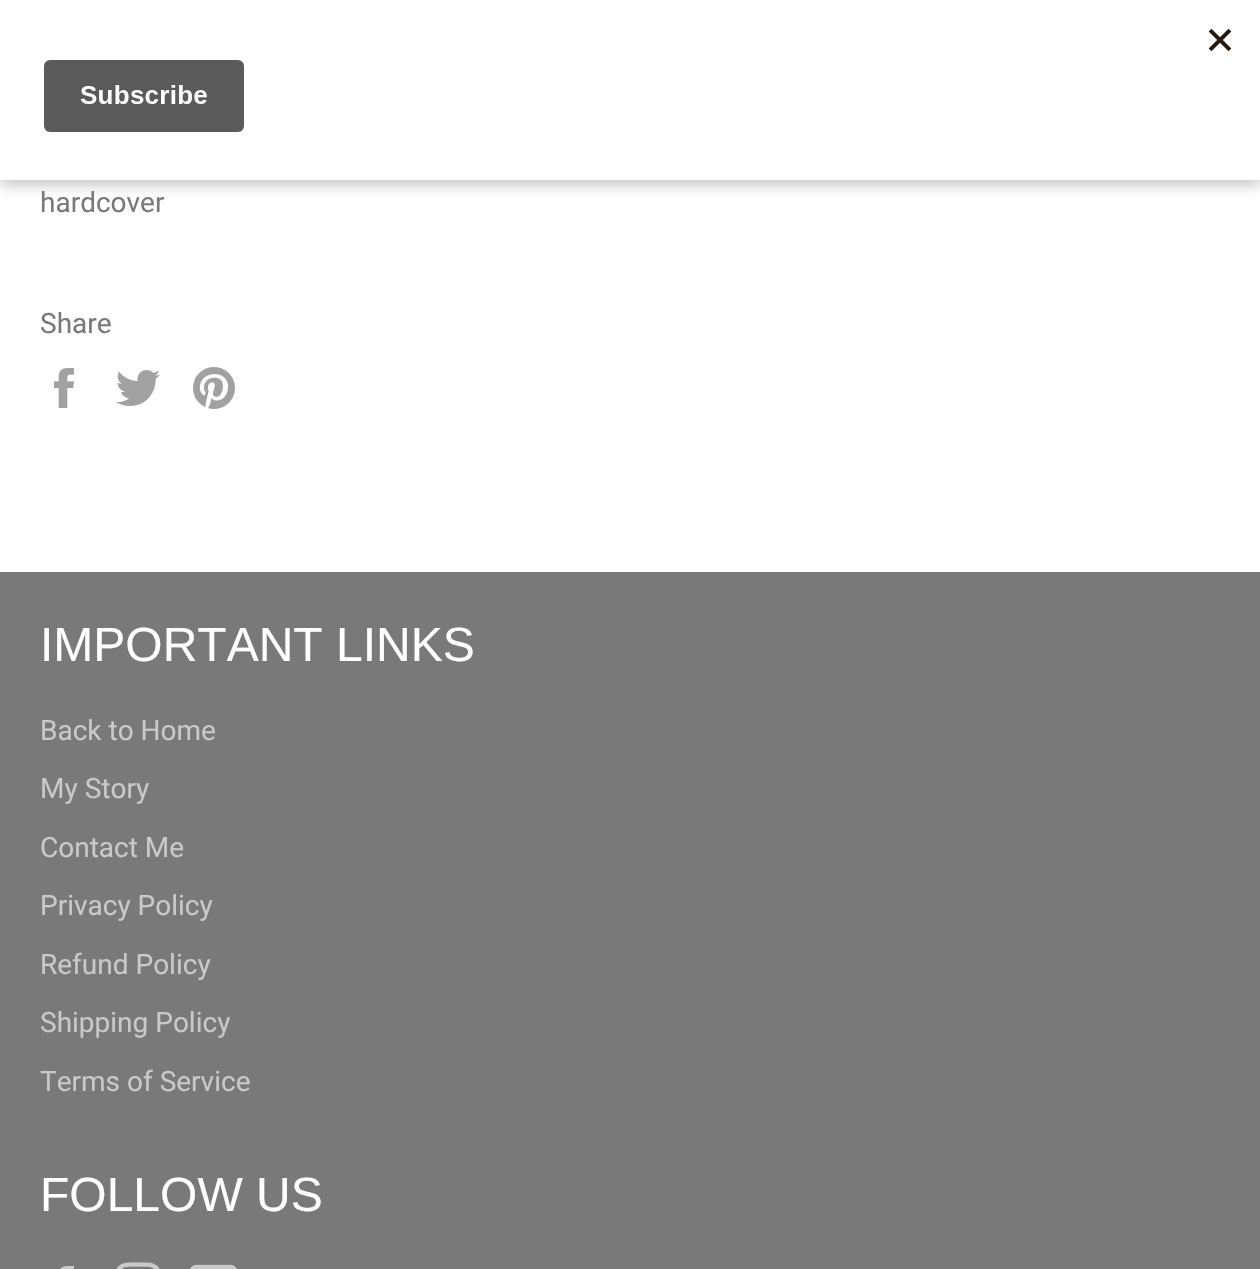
void draw(SkCanvas* canvas) {
    SkPaint paint;
    paint.setAntiAlias(true);
    auto face = [&](const char* family, int weight, float size, bool italic = false) {
        SkFontStyle style(weight, SkFontStyle::kNormal_Width,
            italic ? SkFontStyle::kItalic_Slant : SkFontStyle::kUpright_Slant);
        SkFont result(fontMgr->matchFamilyStyle(family, style), size);
        result.setSubpixel(true);
        return result;
    };
    auto write = [&](const char* s, float x, float y, const SkFont& font, SkColor color) {
        SkPaint ink(SkColor4f::FromColor(color));
        ink.setAntiAlias(true);
        canvas->drawString(s, x, y, font, ink);
    };
    auto block = [&](float x, float y, float w, float h, SkColor color) {
        SkPaint ink(SkColor4f::FromColor(color));
        ink.setAntiAlias(true);
        canvas->drawRect(SkRect::MakeXYWH(x, y, w, h), ink);
    };
    auto paste = [&](const char* path, float x, float y, float w, float h) {
        auto image = SkImages::DeferredFromEncodedData(SkData::MakeFromFileName(path));
        canvas->drawImageRect(image, SkRect::MakeXYWH(x, y, w, h), SkSamplingOptions());
    };
    canvas->clear(SK_ColorWHITE);
    paint.setColor(SkColorSetARGB(51, 0, 0, 0));
    paint.setMaskFilter(SkMaskFilter::MakeBlur(kNormal_SkBlurStyle, 6));
    canvas->drawRect(SkRect::MakeXYWH(0, 6, 1260, 180), paint);
    paint.setMaskFilter(nullptr);
    block(0, 0, 1260, 180, SK_ColorWHITE);
    paste("pic1.png", 44, 28, 1188, 104);
    auto kFont1 = face("Roboto", 400, 28);
    write("hardcover", 40, 212, kFont1, SkColorSetRGB(121, 121, 121));
    write("Share", 40, 333, kFont1, SkColorSetRGB(121, 121, 121));
    paste("pic2.png", 54, 368, 20, 40);
    paste("pic3.png", 116, 370, 44, 36);
    paste("pic4.png", 193, 367, 42, 42);
    block(0, 572, 1260, 697, SkColorSetRGB(121, 121, 121));
    auto kFont2 = face("Liberation Sans", 400, 48);
    write("IMPORTANT LINKS", 40, 661, kFont2, SK_ColorWHITE);
    write("Back to Home", 40, 740, kFont1, SkColorSetRGB(201, 201, 201));
    write("My Story", 40, 798, kFont1, SkColorSetRGB(201, 201, 201));
    write("Contact Me", 40, 857, kFont1, SkColorSetRGB(201, 201, 201));
    write("Privacy Policy", 40, 915, kFont1, SkColorSetRGB(201, 201, 201));
    write("Refund Policy", 40, 974, kFont1, SkColorSetRGB(201, 201, 201));
    write("Shipping Policy", 40, 1032, kFont1, SkColorSetRGB(201, 201, 201));
    write("Terms of Service", 40, 1091, kFont1, SkColorSetRGB(201, 201, 201));
    write("FOLLOW US", 40, 1211, kFont2, SK_ColorWHITE);
    paste("pic5.png", 60, 1266, 14, 3);
    paste("pic6.png", 116, 1262, 44, 7);
    paste("pic7.png", 190, 1264, 47, 5);
}
